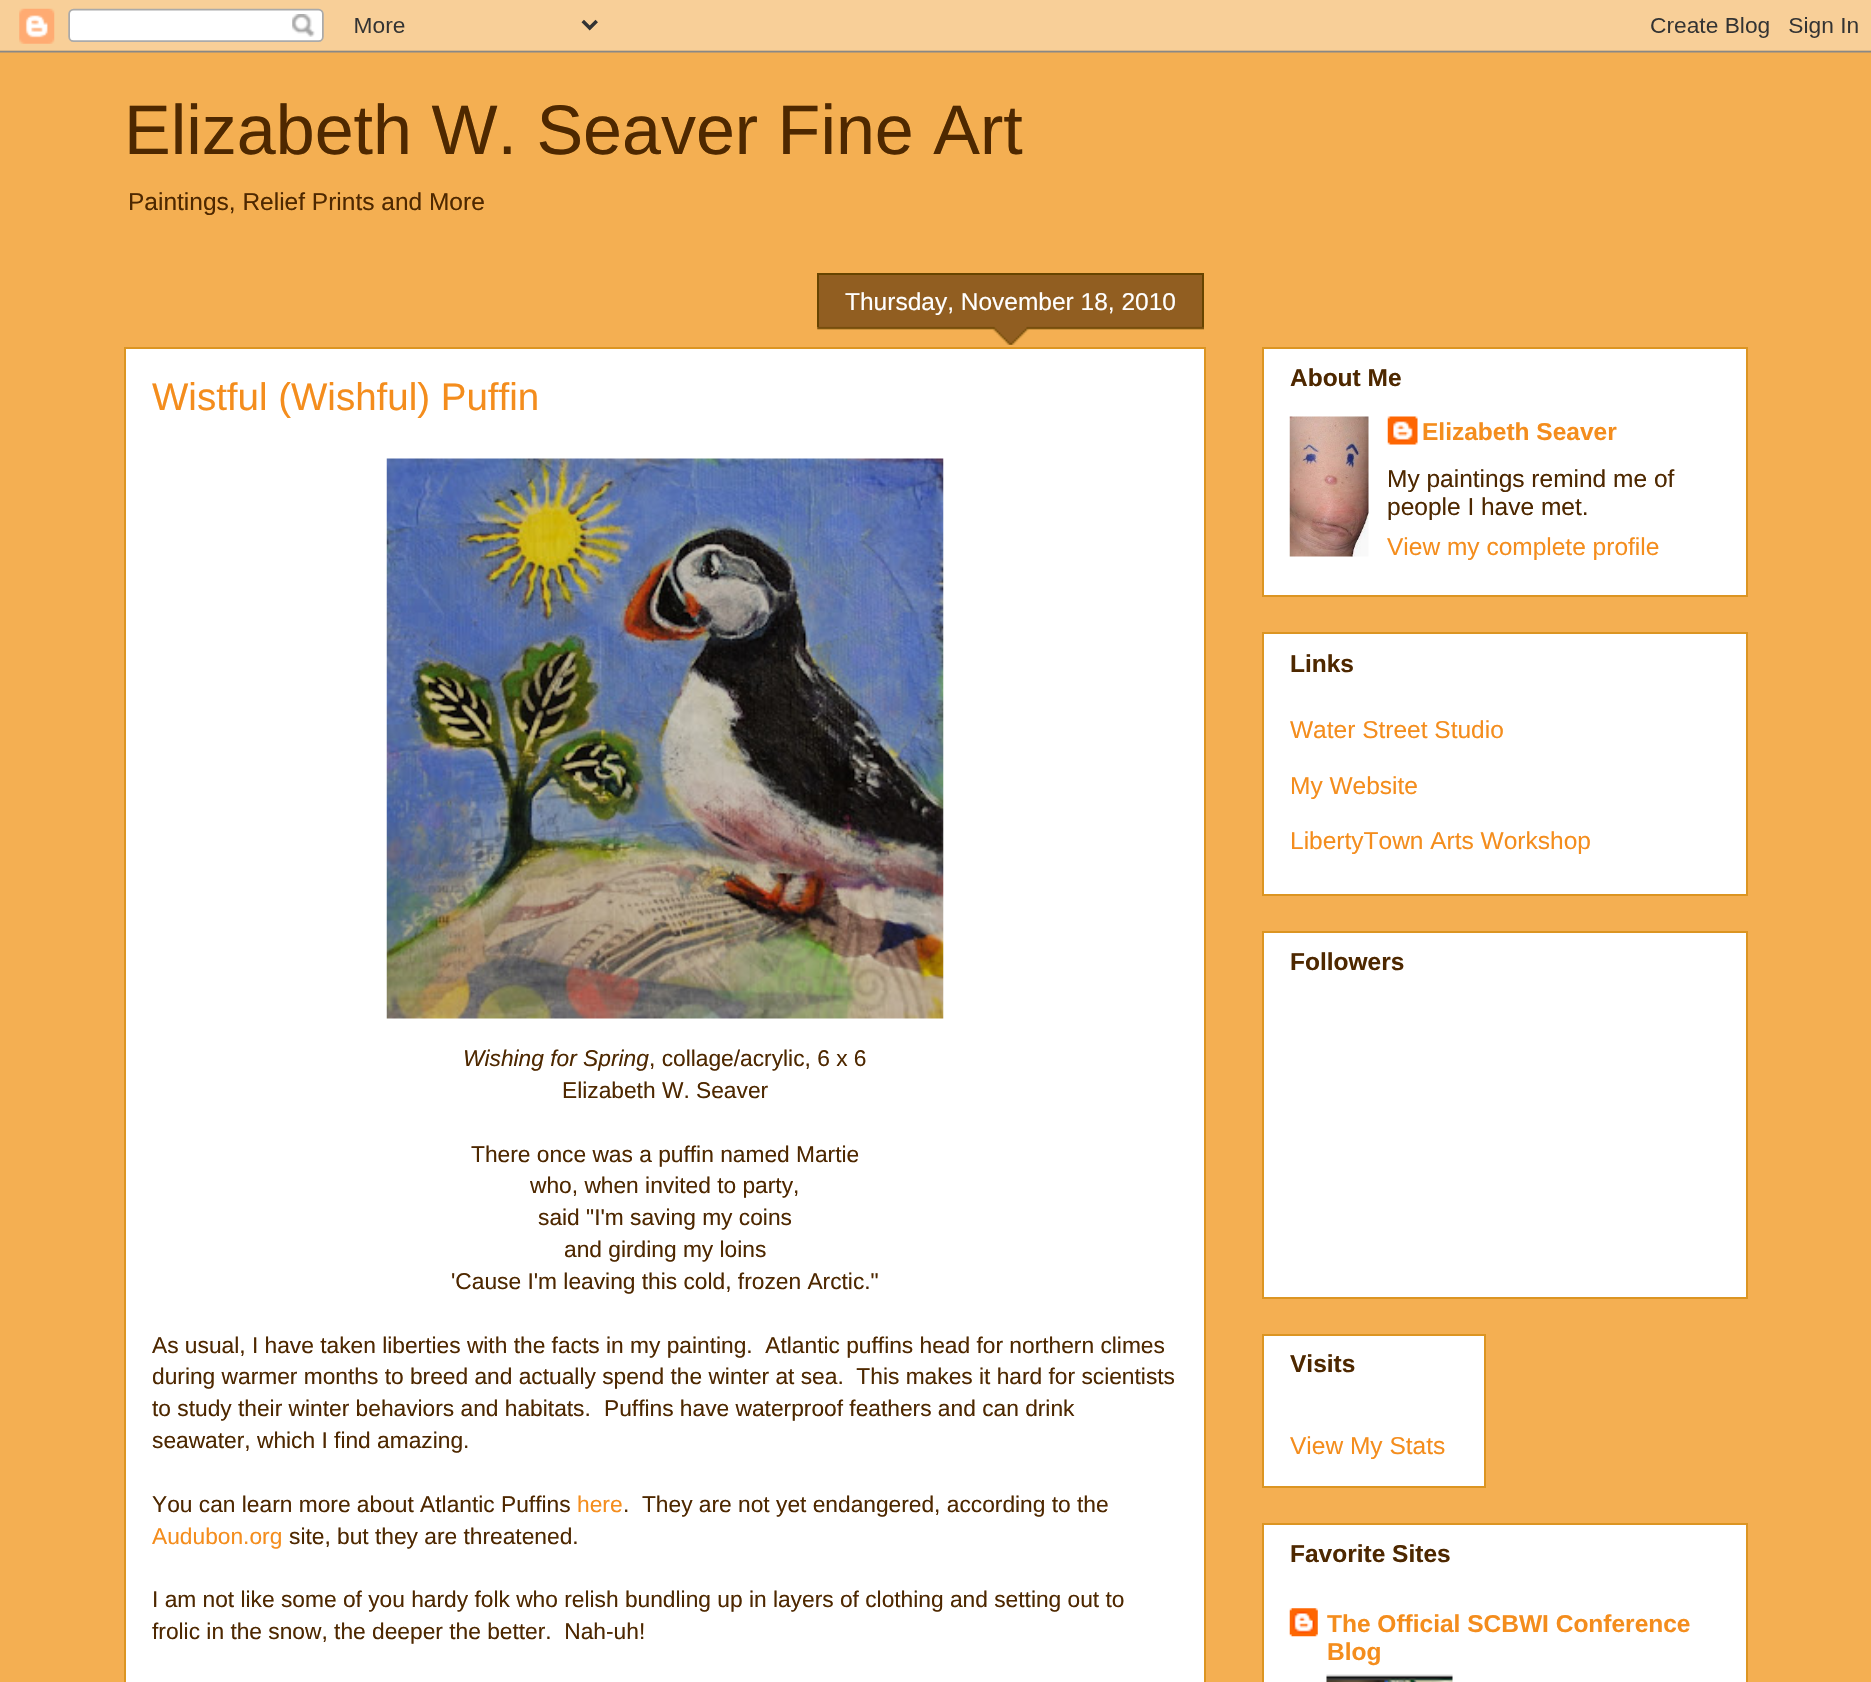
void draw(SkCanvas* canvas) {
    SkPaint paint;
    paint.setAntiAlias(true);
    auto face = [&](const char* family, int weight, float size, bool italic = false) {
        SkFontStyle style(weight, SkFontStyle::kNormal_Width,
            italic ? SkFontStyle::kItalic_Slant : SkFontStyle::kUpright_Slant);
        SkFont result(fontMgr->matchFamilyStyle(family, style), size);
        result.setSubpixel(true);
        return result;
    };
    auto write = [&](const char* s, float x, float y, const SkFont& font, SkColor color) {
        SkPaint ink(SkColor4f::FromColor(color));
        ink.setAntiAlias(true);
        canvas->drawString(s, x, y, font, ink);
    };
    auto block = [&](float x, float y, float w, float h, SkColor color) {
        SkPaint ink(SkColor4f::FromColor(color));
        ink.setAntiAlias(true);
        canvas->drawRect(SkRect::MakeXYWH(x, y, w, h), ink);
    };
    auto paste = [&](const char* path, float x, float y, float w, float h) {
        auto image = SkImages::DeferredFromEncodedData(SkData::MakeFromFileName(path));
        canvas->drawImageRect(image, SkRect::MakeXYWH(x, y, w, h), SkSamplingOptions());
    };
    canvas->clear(SkColorSetRGB(244, 175, 82));
    paste("pic1.png", 0, 0, 1871, 53);
    auto kFont1 = face("Liberation Sans", 400, 70);
    write("Elizabeth W. Seaver Fine Art", 124, 154, kFont1, SkColorSetRGB(78, 40, 0));
    auto kFont2 = face("Liberation Sans", 400, 24.5f);
    write("Paintings, Relief Prints and More", 128, 210, kFont2, SkColorSetRGB(78, 40, 0));
    paint.setColor(SK_ColorWHITE);
    canvas->drawRect(SkRect::MakeXYWH(125, 348, 1080, 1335), paint);
    paint.setStyle(SkPaint::kStroke_Style);
    paint.setStrokeWidth(2);
    paint.setColor(SkColorSetRGB(220, 149, 34));
    canvas->drawRect(SkRect::MakeXYWH(125, 348, 1080, 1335), paint);
    paste("pic2.png", 817, 275, 387, 70);
    block(817, 273, 387, 2, SkColorSetRGB(102, 68, 0));
    block(1202, 275, 2, 52, SkColorSetRGB(102, 68, 0));
    block(817, 275, 2, 52, SkColorSetRGB(102, 68, 0));
    write("Thursday, November 18, 2010", 845, 310, kFont2, SK_ColorWHITE);
    auto kFont3 = face("Liberation Sans", 400, 38.5f);
    write("Wistful (Wishful) Puffin", 152, 410, kFont3, SkColorSetRGB(244, 141, 29));
    paste("pic3.png", 386, 458, 558, 561);
    auto kFont4 = face("Liberation Sans", 400, 22.75f, true);
    write("Wishing for Spring", 463, 1066, kFont4, SkColorSetRGB(78, 40, 0));
    auto kFont5 = face("Liberation Sans", 400, 22.75f);
    write(", collage/acrylic, 6 x 6", 649, 1066, kFont5, SkColorSetRGB(78, 40, 0));
    write("Elizabeth W. Seaver", 562, 1098, kFont5, SkColorSetRGB(78, 40, 0));
    write("There once was a puffin named Martie", 471, 1162, kFont5, SkColorSetRGB(78, 40, 0));
    write("who, when invited to party,", 530, 1193, kFont5, SkColorSetRGB(78, 40, 0));
    write("said \"I'm saving my coins", 538, 1225, kFont5, SkColorSetRGB(78, 40, 0));
    write("and girding my loins", 564, 1257, kFont5, SkColorSetRGB(78, 40, 0));
    write("'Cause I'm leaving this cold, frozen Arctic.\"", 451, 1289, kFont5, SkColorSetRGB(78, 40, 0));
    write("As usual, I have taken liberties with the facts in my painting.  Atlantic puffins head for northern climes", 152, 1353, kFont5, SkColorSetRGB(78, 40, 0));
    write("during warmer months to breed and actually spend the winter at sea.  This makes it hard for scientists", 152, 1384, kFont5, SkColorSetRGB(78, 40, 0));
    write("to study their winter behaviors and habitats.", 152, 1416, kFont5, SkColorSetRGB(78, 40, 0));
    write("Puffins have waterproof feathers and can drink", 604, 1416, kFont5, SkColorSetRGB(78, 40, 0));
    write("seawater, which I find amazing.", 152, 1448, kFont5, SkColorSetRGB(78, 40, 0));
    write("You can learn more about Atlantic Puffins", 152, 1512, kFont5, SkColorSetRGB(78, 40, 0));
    write("here", 577, 1512, kFont5, SkColorSetRGB(244, 141, 29));
    write(".  They are not yet endangered, according to the", 623, 1512, kFont5, SkColorSetRGB(78, 40, 0));
    write("Audubon.org", 152, 1544, kFont5, SkColorSetRGB(244, 141, 29));
    write("site, but they are threatened.", 289, 1544, kFont5, SkColorSetRGB(78, 40, 0));
    write("I am not like some of you hardy folk who relish bundling up in layers of clothing and setting out to", 152, 1607, kFont5, SkColorSetRGB(78, 40, 0));
    write("frolic in the snow, the deeper the better.  Nah-uh!", 152, 1639, kFont5, SkColorSetRGB(78, 40, 0));
    paint.setStyle(SkPaint::kFill_Style);
    paint.setColor(SK_ColorWHITE);
    canvas->drawRect(SkRect::MakeXYWH(1263, 348, 484, 248), paint);
    paint.setStyle(SkPaint::kStroke_Style);
    paint.setColor(SkColorSetRGB(220, 149, 34));
    canvas->drawRect(SkRect::MakeXYWH(1263, 348, 484, 248), paint);
    auto kFont6 = face("Liberation Sans", 700, 24.5f);
    write("About Me", 1290, 386, kFont6, SkColorSetRGB(78, 40, 0));
    paste("pic4.png", 1289, 416, 80, 141);
    paste("pic5.png", 1387, 416, 31, 29);
    write("Elizabeth Seaver", 1422, 440, kFont6, SkColorSetRGB(244, 141, 29));
    write("My paintings remind me of", 1387, 487, kFont2, SkColorSetRGB(78, 40, 0));
    write("people I have met.", 1387, 515, kFont2, SkColorSetRGB(78, 40, 0));
    write("View my complete profile", 1387, 555, kFont2, SkColorSetRGB(244, 141, 29));
    paint.setStyle(SkPaint::kFill_Style);
    paint.setColor(SK_ColorWHITE);
    canvas->drawRect(SkRect::MakeXYWH(1263, 633, 484, 262), paint);
    paint.setStyle(SkPaint::kStroke_Style);
    paint.setColor(SkColorSetRGB(220, 149, 34));
    canvas->drawRect(SkRect::MakeXYWH(1263, 633, 484, 262), paint);
    write("Links", 1290, 672, kFont6, SkColorSetRGB(78, 40, 0));
    write("Water Street Studio", 1290, 738, kFont2, SkColorSetRGB(244, 141, 29));
    write("My Website", 1290, 794, kFont2, SkColorSetRGB(244, 141, 29));
    write("LibertyTown Arts Workshop", 1290, 849, kFont2, SkColorSetRGB(244, 141, 29));
    paint.setStyle(SkPaint::kFill_Style);
    paint.setColor(SK_ColorWHITE);
    canvas->drawRect(SkRect::MakeXYWH(1263, 932, 484, 366), paint);
    paint.setStyle(SkPaint::kStroke_Style);
    paint.setColor(SkColorSetRGB(220, 149, 34));
    canvas->drawRect(SkRect::MakeXYWH(1263, 932, 484, 366), paint);
    write("Followers", 1290, 970, kFont6, SkColorSetRGB(78, 40, 0));
    paint.setStyle(SkPaint::kFill_Style);
    paint.setColor(SK_ColorWHITE);
    canvas->drawRect(SkRect::MakeXYWH(1263, 1335, 222, 152), paint);
    paint.setStyle(SkPaint::kStroke_Style);
    paint.setColor(SkColorSetRGB(220, 149, 34));
    canvas->drawRect(SkRect::MakeXYWH(1263, 1335, 222, 152), paint);
    write("Visits", 1290, 1372, kFont6, SkColorSetRGB(78, 40, 0));
    write("View My Stats", 1290, 1454, kFont2, SkColorSetRGB(244, 141, 29));
    paint.setStyle(SkPaint::kFill_Style);
    paint.setColor(SK_ColorWHITE);
    canvas->drawRect(SkRect::MakeXYWH(1263, 1524, 484, 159), paint);
    paint.setStyle(SkPaint::kStroke_Style);
    paint.setColor(SkColorSetRGB(220, 149, 34));
    canvas->drawRect(SkRect::MakeXYWH(1263, 1524, 484, 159), paint);
    write("Favorite Sites", 1290, 1562, kFont6, SkColorSetRGB(78, 40, 0));
    paste("pic6.png", 1289, 1608, 29, 29);
    write("The Official SCBWI Conference", 1327, 1632, kFont6, SkColorSetRGB(244, 141, 29));
    write("Blog", 1327, 1660, kFont6, SkColorSetRGB(244, 141, 29));
    paste("pic7.png", 1326, 1674, 127, 8);
}
